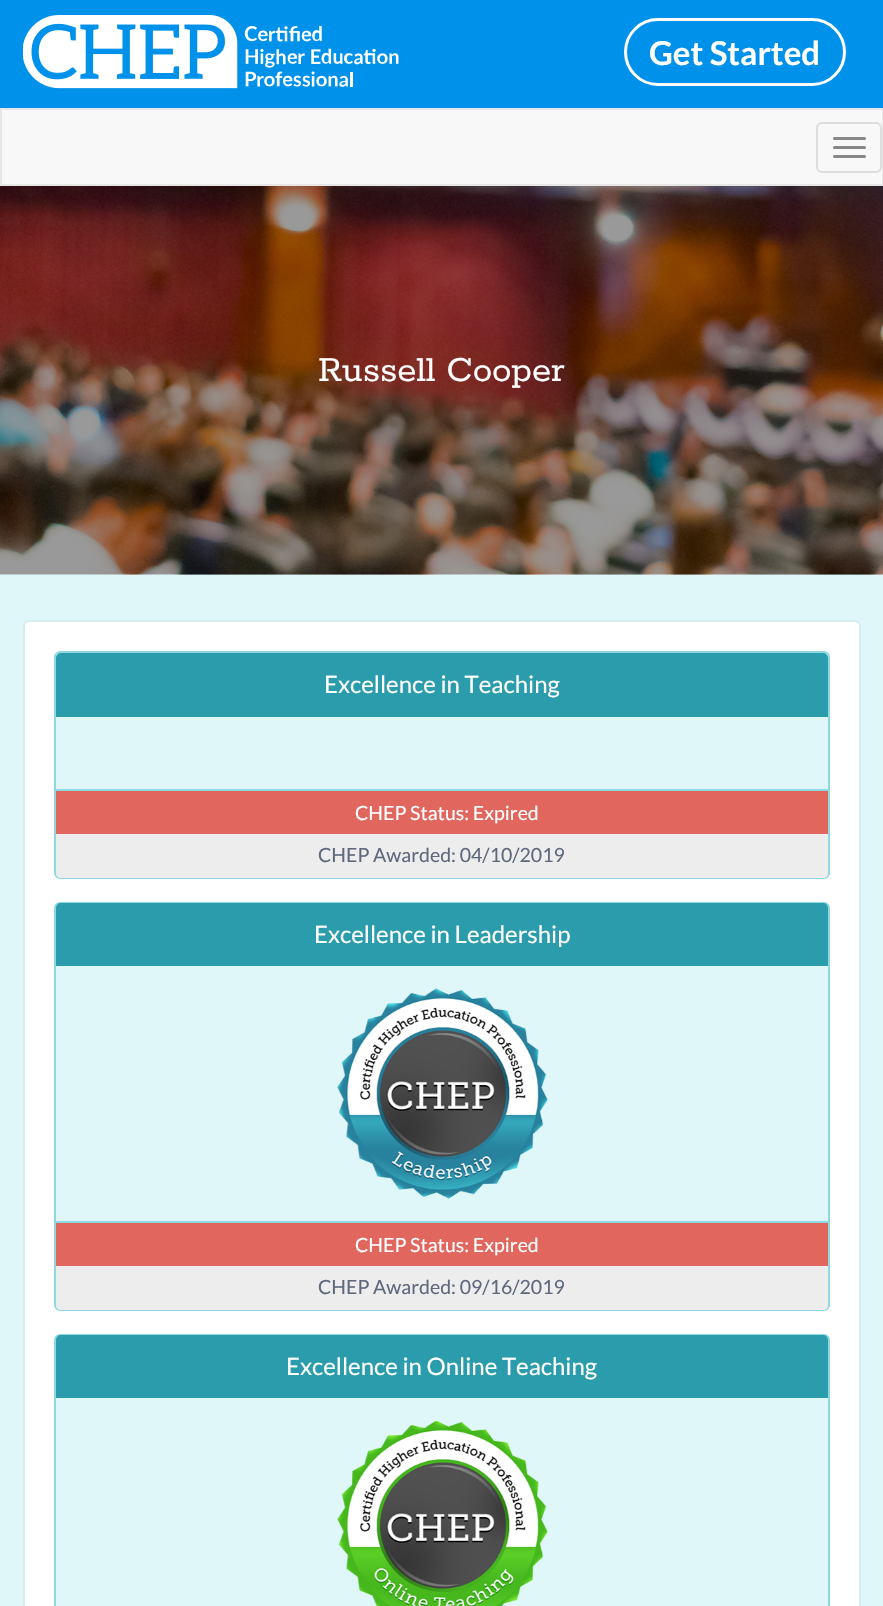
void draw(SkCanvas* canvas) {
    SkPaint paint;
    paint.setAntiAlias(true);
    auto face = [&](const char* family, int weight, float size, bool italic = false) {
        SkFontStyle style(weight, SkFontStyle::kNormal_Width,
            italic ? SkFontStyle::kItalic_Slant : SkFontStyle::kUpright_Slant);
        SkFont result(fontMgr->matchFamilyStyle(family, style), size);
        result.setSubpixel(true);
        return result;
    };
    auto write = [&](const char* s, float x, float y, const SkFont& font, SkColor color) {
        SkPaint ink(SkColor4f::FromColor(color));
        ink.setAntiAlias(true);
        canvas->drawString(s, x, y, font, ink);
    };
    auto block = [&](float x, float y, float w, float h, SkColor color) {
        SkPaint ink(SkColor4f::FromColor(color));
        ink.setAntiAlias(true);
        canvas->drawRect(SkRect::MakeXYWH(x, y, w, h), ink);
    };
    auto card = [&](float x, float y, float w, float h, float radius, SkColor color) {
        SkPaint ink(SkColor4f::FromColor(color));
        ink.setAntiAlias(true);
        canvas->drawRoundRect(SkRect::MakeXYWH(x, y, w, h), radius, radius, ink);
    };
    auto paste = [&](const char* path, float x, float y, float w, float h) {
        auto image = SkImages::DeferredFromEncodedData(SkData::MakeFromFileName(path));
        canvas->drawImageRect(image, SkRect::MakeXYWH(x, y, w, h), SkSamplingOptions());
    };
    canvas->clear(SkColorSetRGB(224, 247, 250));
    block(0, 0, 883, 108, SkColorSetRGB(0, 145, 234));
    paste("pic1.png", 23, 15, 376, 74);
    paint.setStyle(SkPaint::kStroke_Style);
    paint.setStrokeWidth(3);
    paint.setColor(SK_ColorWHITE);
    canvas->drawRoundRect(SkRect::MakeXYWH(625.5f, 19.5f, 219, 65), 32.5f, 32.5f, paint);
    auto kFont1 = face("Lato", 700, 33);
    write("Get Started", 649, 65, kFont1, SK_ColorWHITE);
    paint.setStyle(SkPaint::kFill_Style);
    paint.setColor(SkColorSetRGB(248, 248, 248));
    canvas->drawRect(SkRect::MakeXYWH(1, 109, 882, 76), paint);
    paint.setStyle(SkPaint::kStroke_Style);
    paint.setStrokeWidth(2);
    paint.setColor(SkColorSetRGB(231, 231, 231));
    canvas->drawRect(SkRect::MakeXYWH(1, 109, 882, 76), paint);
    paint.setColor(SkColorSetRGB(221, 221, 221));
    canvas->drawRoundRect(SkRect::MakeXYWH(817, 123, 64, 49), 5, 5, paint);
    card(833, 137, 33, 3, 1.5f, SkColorSetRGB(136, 136, 136));
    card(833, 146, 33, 3, 1.5f, SkColorSetRGB(136, 136, 136));
    card(833, 155, 33, 3, 1.5f, SkColorSetRGB(136, 136, 136));
    paste("pic2.png", 0, 186, 883, 389);
    auto kFont2 = face("Rokkitt", 400, 39);
    write("Russell Cooper", 318, 381, kFont2, SK_ColorWHITE);
    paint.setStyle(SkPaint::kFill_Style);
    paint.setColor(SK_ColorWHITE);
    canvas->drawRoundRect(SkRect::MakeXYWH(24, 621, 836, 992), 5, 5, paint);
    paint.setStyle(SkPaint::kStroke_Style);
    paint.setColor(SkColorSetRGB(214, 237, 240));
    canvas->drawRoundRect(SkRect::MakeXYWH(24, 621, 836, 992), 5, 5, paint);
    paint.setStyle(SkPaint::kFill_Style);
    paint.setColor(SkColorSetRGB(224, 247, 250));
    canvas->drawRoundRect(SkRect::MakeXYWH(55, 652, 774, 226), 5, 5, paint);
    paint.setStyle(SkPaint::kStroke_Style);
    paint.setColor(SkColorSetRGB(141, 216, 226));
    canvas->drawRoundRect(SkRect::MakeXYWH(55, 652, 774, 226), 5, 5, paint);
    paint.setStyle(SkPaint::kFill_Style);
    paint.setColor(SkColorSetRGB(43, 156, 171));
    canvas->drawPath(SkPathBuilder().moveTo(61, 653).lineTo(823, 653).cubicTo(826, 653, 828, 655, 828, 658).lineTo(828, 717).lineTo(56, 717).lineTo(56, 658).cubicTo(56, 655, 58, 653, 61, 653).close().detach(), paint);
    auto kFont3 = face("Lato", 400, 24);
    write("Excellence in Teaching", 324, 693, kFont3, SK_ColorWHITE);
    block(56, 789, 772, 2, SkColorSetRGB(141, 216, 226));
    block(56, 791, 772, 43, SkColorSetRGB(224, 102, 94));
    auto kFont4 = face("Lato", 400, 19.5f);
    write("CHEP Status: Expired", 355, 820, kFont4, SK_ColorWHITE);
    paint.setColor(SkColorSetRGB(237, 237, 237));
    canvas->drawPath(SkPathBuilder().moveTo(56, 834).lineTo(828, 834).lineTo(828, 873).cubicTo(828, 876, 826, 878, 823, 878).lineTo(61, 878).cubicTo(58, 878, 56, 876, 56, 873).close().detach(), paint);
    write("CHEP Awarded: 04/10/2019", 318, 862, kFont4, SkColorSetRGB(95, 104, 124));
    paint.setColor(SkColorSetRGB(224, 247, 250));
    canvas->drawRoundRect(SkRect::MakeXYWH(55, 903, 774, 407), 5, 5, paint);
    paint.setStyle(SkPaint::kStroke_Style);
    paint.setColor(SkColorSetRGB(141, 216, 226));
    canvas->drawRoundRect(SkRect::MakeXYWH(55, 903, 774, 407), 5, 5, paint);
    paint.setStyle(SkPaint::kFill_Style);
    paint.setColor(SkColorSetRGB(43, 156, 171));
    canvas->drawPath(SkPathBuilder().moveTo(61, 903).lineTo(823, 903).cubicTo(826, 903, 828, 905, 828, 908).lineTo(828, 966).lineTo(56, 966).lineTo(56, 908).cubicTo(56, 905, 58, 903, 61, 903).close().detach(), paint);
    write("Excellence in Leadership", 314, 943, kFont3, SK_ColorWHITE);
    paste("pic3.png", 337, 988, 211, 211);
    block(56, 1221, 772, 2, SkColorSetRGB(141, 216, 226));
    block(56, 1223, 772, 43, SkColorSetRGB(224, 102, 94));
    write("CHEP Status: Expired", 355, 1252, kFont4, SK_ColorWHITE);
    paint.setColor(SkColorSetRGB(237, 237, 237));
    canvas->drawPath(SkPathBuilder().moveTo(56, 1266).lineTo(828, 1266).lineTo(828, 1305).cubicTo(828, 1308, 826, 1310, 823, 1310).lineTo(61, 1310).cubicTo(58, 1310, 56, 1308, 56, 1305).close().detach(), paint);
    write("CHEP Awarded: 09/16/2019", 318, 1294, kFont4, SkColorSetRGB(95, 104, 124));
    paint.setColor(SkColorSetRGB(224, 247, 250));
    canvas->drawRoundRect(SkRect::MakeXYWH(55, 1335, 774, 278), 5, 5, paint);
    paint.setStyle(SkPaint::kStroke_Style);
    paint.setColor(SkColorSetRGB(141, 216, 226));
    canvas->drawRoundRect(SkRect::MakeXYWH(55, 1335, 774, 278), 5, 5, paint);
    paint.setStyle(SkPaint::kFill_Style);
    paint.setColor(SkColorSetRGB(43, 156, 171));
    canvas->drawPath(SkPathBuilder().moveTo(61, 1335).lineTo(823, 1335).cubicTo(826, 1335, 828, 1337, 828, 1340).lineTo(828, 1398).lineTo(56, 1398).lineTo(56, 1340).cubicTo(56, 1337, 58, 1335, 61, 1335).close().detach(), paint);
    write("Excellence in Online Teaching", 286, 1375, kFont3, SK_ColorWHITE);
    paste("pic4.png", 337, 1421, 211, 185);
}
